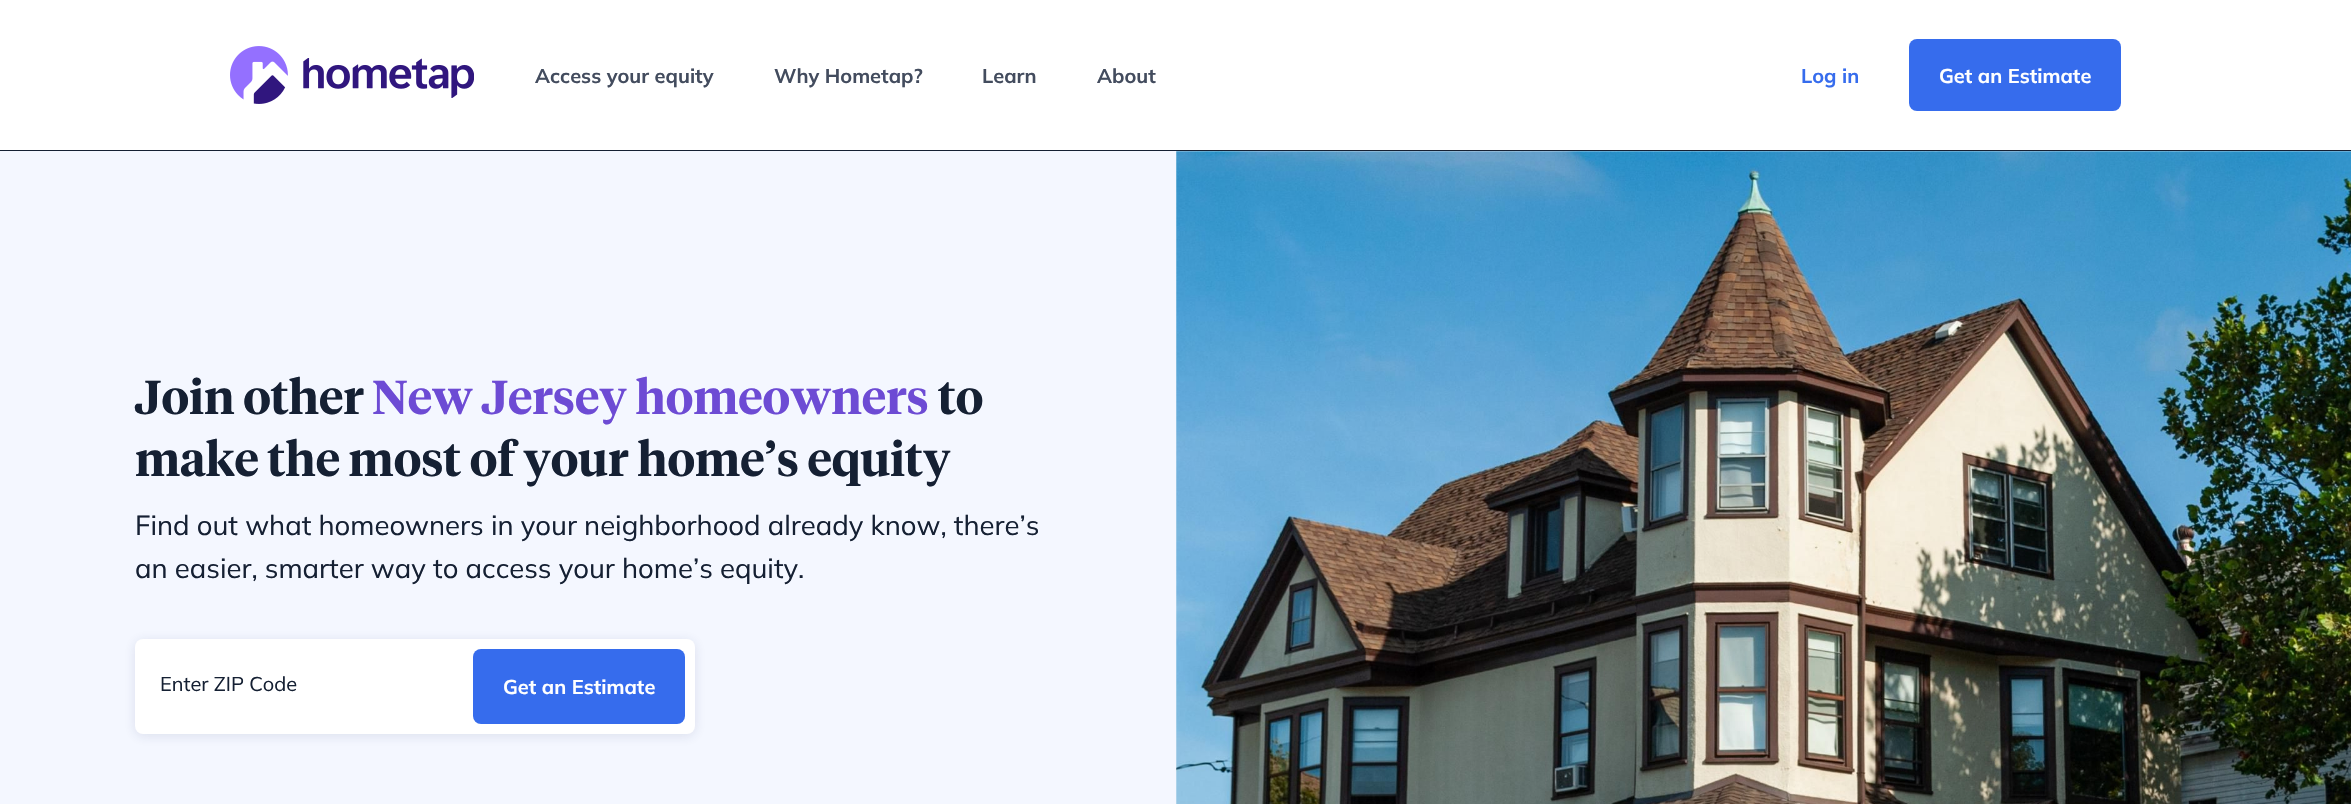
void draw(SkCanvas* canvas) {
    SkPaint paint;
    paint.setAntiAlias(true);
    auto face = [&](const char* family, int weight, float size, bool italic = false) {
        SkFontStyle style(weight, SkFontStyle::kNormal_Width,
            italic ? SkFontStyle::kItalic_Slant : SkFontStyle::kUpright_Slant);
        SkFont result(fontMgr->matchFamilyStyle(family, style), size);
        result.setSubpixel(true);
        return result;
    };
    auto write = [&](const char* s, float x, float y, const SkFont& font, SkColor color) {
        SkPaint ink(SkColor4f::FromColor(color));
        ink.setAntiAlias(true);
        canvas->drawString(s, x, y, font, ink);
    };
    auto block = [&](float x, float y, float w, float h, SkColor color) {
        SkPaint ink(SkColor4f::FromColor(color));
        ink.setAntiAlias(true);
        canvas->drawRect(SkRect::MakeXYWH(x, y, w, h), ink);
    };
    auto card = [&](float x, float y, float w, float h, float radius, SkColor color) {
        SkPaint ink(SkColor4f::FromColor(color));
        ink.setAntiAlias(true);
        canvas->drawRoundRect(SkRect::MakeXYWH(x, y, w, h), radius, radius, ink);
    };
    auto paste = [&](const char* path, float x, float y, float w, float h) {
        auto image = SkImages::DeferredFromEncodedData(SkData::MakeFromFileName(path));
        canvas->drawImageRect(image, SkRect::MakeXYWH(x, y, w, h), SkSamplingOptions());
    };
    canvas->clear(SK_ColorWHITE);
    paste("pic1.png", 230, 46, 244, 58);
    auto kFont1 = face("Mulish", 700, 20);
    write("Access your equity", 535, 83, kFont1, SkColorSetRGB(67, 76, 94));
    write("Why Hometap?", 774, 83, kFont1, SkColorSetRGB(67, 76, 94));
    write("Learn", 982, 83, kFont1, SkColorSetRGB(67, 76, 94));
    write("About", 1097, 83, kFont1, SkColorSetRGB(67, 76, 94));
    write("Log in", 1801, 83, kFont1, SkColorSetRGB(54, 108, 237));
    card(1909, 39, 212, 72, 8, SkColorSetRGB(54, 108, 237));
    write("Get an Estimate", 1939, 83, kFont1, SK_ColorWHITE);
    block(0, 150, 2351, 1, SkColorSetRGB(21, 32, 51));
    block(0, 151, 1176, 653, SkColorSetRGB(244, 247, 255));
    auto kFont2 = face("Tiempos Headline", 600, 47.5f);
    write("Join other", 135, 414, kFont2, SkColorSetRGB(21, 32, 51));
    write("New Jersey homeowners", 372, 414, kFont2, SkColorSetRGB(109, 75, 212));
    write("to", 938, 414, kFont2, SkColorSetRGB(21, 32, 51));
    write("make the most of your home’s equity", 135, 476, kFont2, SkColorSetRGB(21, 32, 51));
    auto kFont3 = face("Mulish", 400, 27.5f);
    write("Find out what homeowners in your neighborhood already know, there’s", 135, 535, kFont3, SkColorSetRGB(21, 32, 51));
    write("an easier, smarter way to access your home’s equity.", 135, 578, kFont3, SkColorSetRGB(21, 32, 51));
    paint.setColor(SkColorSetARGB(31, 32, 53, 104));
    paint.setMaskFilter(SkMaskFilter::MakeBlur(kNormal_SkBlurStyle, 6));
    canvas->drawRoundRect(SkRect::MakeXYWH(135, 641, 560, 95), 8, 8, paint);
    paint.setMaskFilter(nullptr);
    card(135, 639, 560, 95, 8, SK_ColorWHITE);
    auto kFont4 = face("Mulish", 400, 20);
    write("Enter ZIP Code", 160, 691, kFont4, SkColorSetRGB(21, 32, 51));
    card(473, 649, 212, 75, 8, SkColorSetRGB(54, 108, 237));
    write("Get an Estimate", 503, 694, kFont1, SK_ColorWHITE);
    paste("pic2.png", 1176, 151, 1175, 653);
}
